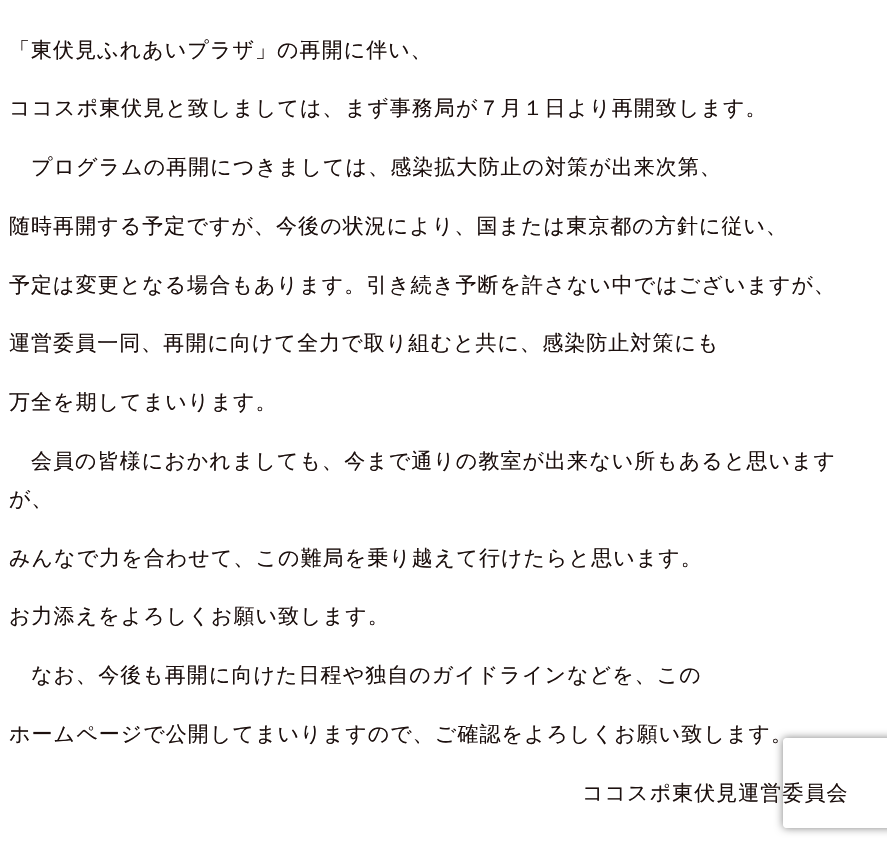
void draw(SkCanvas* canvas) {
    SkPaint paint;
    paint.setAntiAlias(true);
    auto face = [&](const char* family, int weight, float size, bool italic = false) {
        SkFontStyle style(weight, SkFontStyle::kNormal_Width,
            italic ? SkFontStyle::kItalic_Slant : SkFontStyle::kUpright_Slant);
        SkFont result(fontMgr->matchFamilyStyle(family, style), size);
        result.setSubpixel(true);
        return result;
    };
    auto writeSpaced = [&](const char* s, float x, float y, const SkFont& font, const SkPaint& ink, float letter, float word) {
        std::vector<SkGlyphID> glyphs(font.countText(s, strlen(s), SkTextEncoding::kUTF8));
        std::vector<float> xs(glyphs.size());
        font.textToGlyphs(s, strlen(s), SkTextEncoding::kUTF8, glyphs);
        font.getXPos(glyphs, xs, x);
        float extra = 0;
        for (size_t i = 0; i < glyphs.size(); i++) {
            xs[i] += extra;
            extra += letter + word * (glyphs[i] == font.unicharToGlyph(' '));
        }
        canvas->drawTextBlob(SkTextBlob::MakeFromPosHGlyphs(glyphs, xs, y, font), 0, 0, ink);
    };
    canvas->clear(SK_ColorWHITE);
    auto kFont1 = face("WenQuanYi Zen Hei", 500, 21);
    paint.setColor(SkColorSetRGB(28, 16, 14));
    writeSpaced("「東伏見ふれあいプラザ」の再開に伴い、", 9, 57, kFont1, paint, 1.05f, 0);
    writeSpaced("ココスポ東伏見と致しましては、まず事務局が７月１日より再開致します。", 9, 115, kFont1, paint, 1.05f, 0);
    writeSpaced("プログラムの再開につきましては、感染拡大防止の対策が出来次第、", 31, 174, kFont1, paint, 1.05f, 0);
    writeSpaced("随時再開する予定ですが、今後の状況により、国または東京都の方針に従い、", 9, 233, kFont1, paint, 1.05f, 0);
    writeSpaced("予定は変更となる場合もあります。引き続き予断を許さない中ではございますが、", 9, 292, kFont1, paint, 1.05f, 0);
    writeSpaced("運営委員一同、再開に向けて全力で取り組むと共に、感染防止対策にも", 9, 350, kFont1, paint, 1.05f, 0);
    writeSpaced("万全を期してまいります。", 9, 409, kFont1, paint, 1.05f, 0);
    writeSpaced("会員の皆様におかれましても、今まで通りの教室が出来ない所もあると思います", 31, 468, kFont1, paint, 1.05f, 0);
    writeSpaced("が、", 9, 506, kFont1, paint, 1.05f, 0);
    writeSpaced("みんなで力を合わせて、この難局を乗り越えて行けたらと思います。", 9, 565, kFont1, paint, 1.05f, 0);
    writeSpaced("お力添えをよろしくお願い致します。", 9, 623, kFont1, paint, 1.05f, 0);
    writeSpaced("なお、今後も再開に向けた日程や独自のガイドラインなどを、この", 31, 682, kFont1, paint, 1.05f, 0);
    writeSpaced("ホームページで公開してまいりますので、ご確認をよろしくお願い致します。", 9, 741, kFont1, paint, 1.05f, 0);
    writeSpaced("ココスポ東伏見運営委員会", 582, 800, kFont1, paint, 1.05f, 0);
    canvas->save();
    canvas->clipPath(SkPathBuilder(SkPathFillType::kEvenOdd).moveTo(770, 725).lineTo(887, 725).lineTo(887, 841).lineTo(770, 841).close().moveTo(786, 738).lineTo(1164, 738).cubicTo(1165.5f, 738, 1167, 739.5f, 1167, 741).lineTo(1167, 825).cubicTo(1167, 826.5f, 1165.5f, 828, 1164, 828).lineTo(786, 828).cubicTo(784.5f, 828, 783, 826.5f, 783, 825).lineTo(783, 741).cubicTo(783, 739.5f, 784.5f, 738, 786, 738).close().detach(), true);
    paint.setColor(SkColorSetRGB(128, 128, 128));
    paint.setMaskFilter(SkMaskFilter::MakeBlur(kNormal_SkBlurStyle, 4));
    canvas->drawRoundRect(SkRect::MakeXYWH(783, 738, 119, 90), 3, 3, paint);
    paint.setMaskFilter(nullptr);
    canvas->restore();
}
